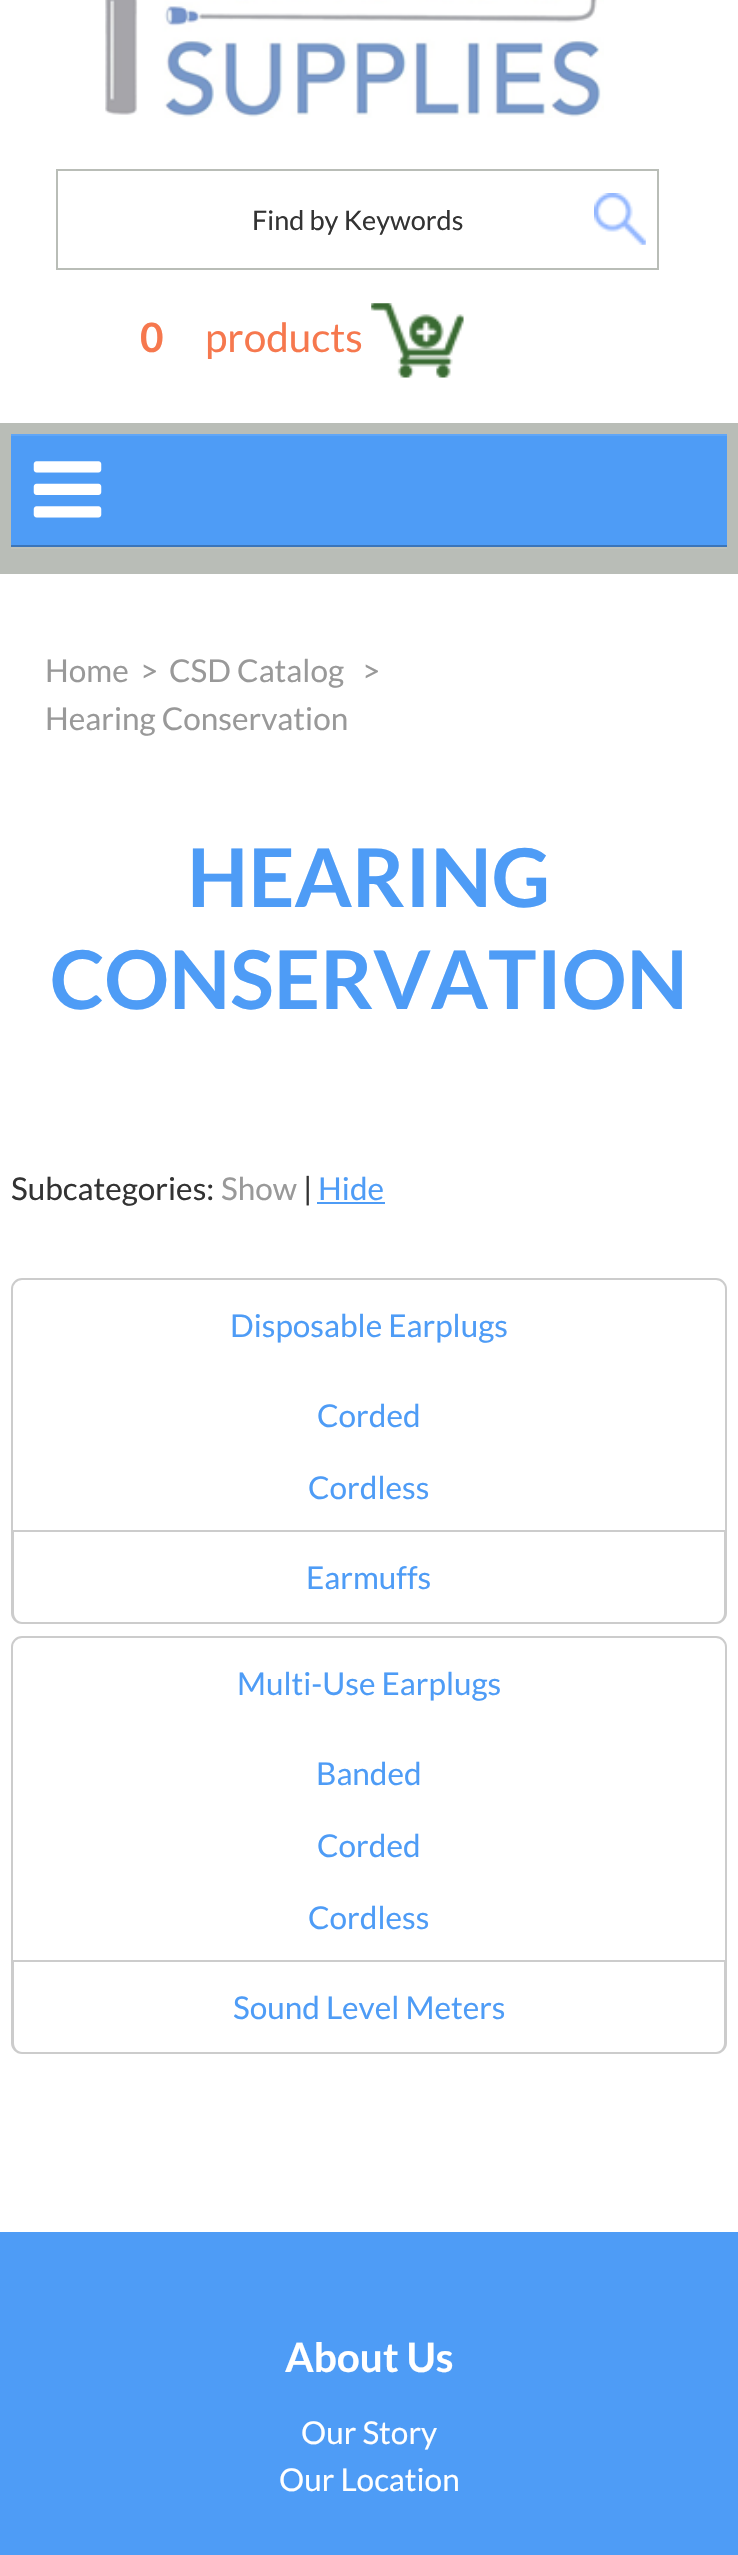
void draw(SkCanvas* canvas) {
    SkPaint paint;
    paint.setAntiAlias(true);
    auto face = [&](const char* family, int weight, float size, bool italic = false) {
        SkFontStyle style(weight, SkFontStyle::kNormal_Width,
            italic ? SkFontStyle::kItalic_Slant : SkFontStyle::kUpright_Slant);
        SkFont result(fontMgr->matchFamilyStyle(family, style), size);
        result.setSubpixel(true);
        return result;
    };
    auto write = [&](const char* s, float x, float y, const SkFont& font, SkColor color) {
        SkPaint ink(SkColor4f::FromColor(color));
        ink.setAntiAlias(true);
        canvas->drawString(s, x, y, font, ink);
    };
    auto block = [&](float x, float y, float w, float h, SkColor color) {
        SkPaint ink(SkColor4f::FromColor(color));
        ink.setAntiAlias(true);
        canvas->drawRect(SkRect::MakeXYWH(x, y, w, h), ink);
    };
    auto paste = [&](const char* path, float x, float y, float w, float h) {
        auto image = SkImages::DeferredFromEncodedData(SkData::MakeFromFileName(path));
        canvas->drawImageRect(image, SkRect::MakeXYWH(x, y, w, h), SkSamplingOptions());
    };
    canvas->clear(SK_ColorWHITE);
    paste("pic1.png", 105, 0, 499, 118);
    paste("pic2.png", 594, 193, 52, 52);
    paint.setStyle(SkPaint::kStroke_Style);
    paint.setStrokeWidth(2);
    paint.setColor(SkColorSetRGB(185, 189, 183));
    canvas->drawRect(SkRect::MakeXYWH(57, 170, 601, 99), paint);
    auto kFont1 = face("Lato", 400, 27);
    write("Find by Keywords", 252, 230, kFont1, SkColorSetRGB(51, 51, 51));
    auto kFont2 = face("Lato", 700, 40.5f);
    write("0", 140, 352, kFont2, SkColorSetRGB(246, 120, 78));
    auto kFont3 = face("Lato", 400, 40.5f);
    write("products", 205, 352, kFont3, SkColorSetRGB(246, 120, 78));
    paste("pic3.png", 371, 303, 93, 75);
    block(0, 423, 738, 151, SkColorSetRGB(185, 189, 183));
    paint.setStyle(SkPaint::kFill_Style);
    paint.setColor(SkColorSetRGB(190, 194, 188));
    canvas->drawPath(SkPathBuilder().moveTo(11, 437).lineTo(11, 549).lineTo(727, 549).lineTo(727, 437).lineTo(727, 547).lineTo(11, 547).close().detach(), paint);
    block(11, 436, 716, 109, SkColorSetRGB(78, 156, 246));
    block(11, 434, 716, 2, SkColorSetRGB(96, 166, 247));
    block(11, 545, 716, 2, SkColorSetRGB(59, 117, 185));
    paste("pic4.png", 33, 461, 69, 57);
    auto kFont4 = face("Lato", 400, 31.5f);
    write("Home", 45, 682, kFont4, SkColorSetRGB(153, 153, 153));
    write(">", 140, 682, kFont4, SkColorSetRGB(153, 153, 153));
    write("CSD Catalog", 169, 682, kFont4, SkColorSetRGB(153, 153, 153));
    write(">", 362, 682, kFont4, SkColorSetRGB(153, 153, 153));
    write("Hearing Conservation", 45, 730, kFont4, SkColorSetRGB(153, 153, 153));
    auto kFont5 = face("Lato", 700, 81);
    write("HEARING", 187, 907, kFont5, SkColorSetRGB(78, 156, 246));
    write("CONSERVATION", 50, 1009, kFont5, SkColorSetRGB(78, 156, 246));
    write("Subcategories:", 11, 1200, kFont4, SkColorSetRGB(51, 51, 51));
    write("Show", 221, 1200, kFont4, SkColorSetRGB(153, 153, 153));
    write("|", 303, 1200, kFont4, SkColorSetRGB(51, 51, 51));
    write("Hide", 318, 1200, kFont4, SkColorSetRGB(78, 156, 246));
    block(317, 1202, 68, 2, SkColorSetRGB(78, 156, 246));
    paint.setStyle(SkPaint::kStroke_Style);
    paint.setColor(SkColorSetRGB(204, 204, 204));
    canvas->drawPath(SkPathBuilder().moveTo(22, 1279).lineTo(716, 1279).cubicTo(721.5f, 1279, 726, 1283.5f, 726, 1289).lineTo(726, 1531).lineTo(12, 1531).lineTo(12, 1289).cubicTo(12, 1283.5f, 16.5f, 1279, 22, 1279).close().detach(), paint);
    write("Disposable Earplugs", 230, 1337, kFont4, SkColorSetRGB(78, 156, 246));
    write("Corded", 317, 1427, kFont4, SkColorSetRGB(78, 156, 246));
    write("Cordless", 308, 1499, kFont4, SkColorSetRGB(78, 156, 246));
    paint.setStyle(SkPaint::kFill_Style);
    canvas->drawPath(SkPathBuilder(SkPathFillType::kEvenOdd).moveTo(11, 1532).lineTo(727, 1532).lineTo(727, 1613).cubicTo(727, 1619, 722, 1624, 716, 1624).lineTo(22, 1624).cubicTo(16, 1624, 11, 1619, 11, 1613).close().moveTo(14, 1532).lineTo(724, 1532).lineTo(724, 1613).cubicTo(724, 1618, 720, 1622, 716, 1622).lineTo(22, 1622).cubicTo(18, 1622, 14, 1618, 14, 1613).close().detach(), paint);
    write("Earmuffs", 306, 1589, kFont4, SkColorSetRGB(78, 156, 246));
    paint.setStyle(SkPaint::kStroke_Style);
    canvas->drawPath(SkPathBuilder().moveTo(22, 1637).lineTo(716, 1637).cubicTo(721.5f, 1637, 726, 1641.5f, 726, 1647).lineTo(726, 1961).lineTo(12, 1961).lineTo(12, 1647).cubicTo(12, 1641.5f, 16.5f, 1637, 22, 1637).close().detach(), paint);
    write("Multi-Use Earplugs", 237, 1695, kFont4, SkColorSetRGB(78, 156, 246));
    write("Banded", 316, 1785, kFont4, SkColorSetRGB(78, 156, 246));
    write("Corded", 317, 1857, kFont4, SkColorSetRGB(78, 156, 246));
    write("Cordless", 308, 1929, kFont4, SkColorSetRGB(78, 156, 246));
    paint.setStyle(SkPaint::kFill_Style);
    canvas->drawPath(SkPathBuilder(SkPathFillType::kEvenOdd).moveTo(11, 1962).lineTo(727, 1962).lineTo(727, 2043).cubicTo(727, 2049, 722, 2054, 716, 2054).lineTo(22, 2054).cubicTo(16, 2054, 11, 2049, 11, 2043).close().moveTo(14, 1962).lineTo(724, 1962).lineTo(724, 2043).cubicTo(724, 2048, 720, 2052, 716, 2052).lineTo(22, 2052).cubicTo(18, 2052, 14, 2048, 14, 2043).close().detach(), paint);
    write("Sound Level Meters", 233, 2019, kFont4, SkColorSetRGB(78, 156, 246));
    block(0, 2232, 738, 323, SkColorSetRGB(78, 156, 246));
    write("About Us", 285, 2372, kFont2, SK_ColorWHITE);
    write("Our Story", 301, 2444, kFont4, SK_ColorWHITE);
    write("Our Location", 279, 2491, kFont4, SK_ColorWHITE);
}
